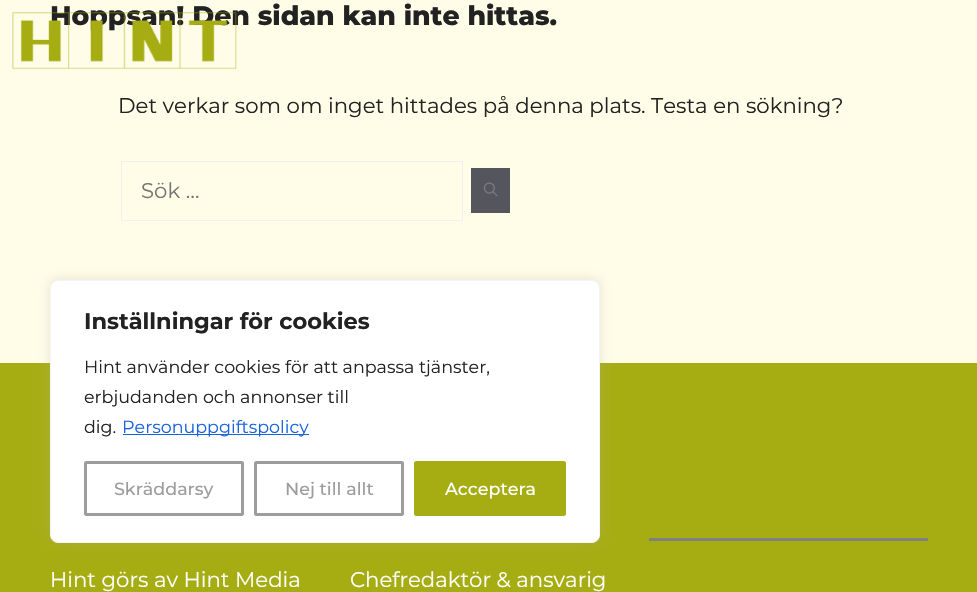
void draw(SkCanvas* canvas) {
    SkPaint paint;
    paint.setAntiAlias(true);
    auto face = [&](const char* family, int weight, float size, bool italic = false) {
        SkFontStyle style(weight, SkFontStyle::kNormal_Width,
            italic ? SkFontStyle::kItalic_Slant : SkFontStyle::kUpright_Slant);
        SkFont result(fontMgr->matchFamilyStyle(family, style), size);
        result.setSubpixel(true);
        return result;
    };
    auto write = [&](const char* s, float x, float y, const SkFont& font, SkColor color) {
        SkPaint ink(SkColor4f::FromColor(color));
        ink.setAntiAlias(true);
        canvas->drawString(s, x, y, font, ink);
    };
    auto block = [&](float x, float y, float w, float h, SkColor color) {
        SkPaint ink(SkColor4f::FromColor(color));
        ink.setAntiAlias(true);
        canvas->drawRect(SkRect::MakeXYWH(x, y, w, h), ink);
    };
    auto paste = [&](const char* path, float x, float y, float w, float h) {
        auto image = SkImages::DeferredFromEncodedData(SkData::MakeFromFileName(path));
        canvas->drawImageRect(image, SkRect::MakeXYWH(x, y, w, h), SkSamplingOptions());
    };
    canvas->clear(SkColorSetRGB(255, 252, 231));
    auto kFont1 = face("Montserrat", 800, 26.7f);
    write("Hoppsan! Den sidan kan inte hittas.", 50, 25, kFont1, SkColorSetRGB(34, 34, 34));
    auto kFont2 = face("Montserrat", 400, 21.25f);
    write("Det verkar som om inget hittades på denna plats. Testa en sökning?", 118, 113, kFont2, SkColorSetRGB(34, 34, 34));
    paint.setStyle(SkPaint::kStroke_Style);
    paint.setStrokeWidth(1);
    paint.setColor(SkColorSetRGB(240, 240, 240));
    canvas->drawRect(SkRect::MakeXYWH(121.5f, 161.5f, 341, 59), paint);
    write("Sök …", 141, 198, kFont2, SkColorSetRGB(117, 117, 117));
    block(471, 168, 39, 45, SkColorSetRGB(85, 85, 94));
    paste("pic1.png", 483, 182, 15, 15);
    paste("pic2.png", 12, 12, 225, 57);
    block(0, 363, 977, 229, SkColorSetRGB(166, 173, 19));
    paint.setStyle(SkPaint::kFill_Style);
    paint.setColor(SkColorSetARGB(77, 172, 171, 171));
    paint.setMaskFilter(SkMaskFilter::MakeBlur(kNormal_SkBlurStyle, 6));
    canvas->drawRoundRect(SkRect::MakeXYWH(50, 279, 550, 262), 8, 8, paint);
    paint.setMaskFilter(nullptr);
    paint.setColor(SK_ColorWHITE);
    canvas->drawRoundRect(SkRect::MakeXYWH(50.5f, 280.5f, 549, 262), 7.5f, 7.5f, paint);
    paint.setStyle(SkPaint::kStroke_Style);
    paint.setColor(SkColorSetRGB(244, 244, 244));
    canvas->drawRoundRect(SkRect::MakeXYWH(50.5f, 280.5f, 549, 262), 7.5f, 7.5f, paint);
    auto kFont3 = face("Montserrat", 700, 22.5f);
    write("Inställningar för cookies", 84, 329, kFont3, SkColorSetRGB(34, 34, 34));
    auto kFont4 = face("Montserrat", 400, 17.5f);
    write("Hint använder cookies för att anpassa tjänster,", 84, 373, kFont4, SkColorSetRGB(34, 34, 34));
    write("erbjudanden och annonser till", 84, 403, kFont4, SkColorSetRGB(34, 34, 34));
    write("dig.", 84, 433, kFont4, SkColorSetRGB(34, 34, 34));
    block(123, 434, 186, 1, SkColorSetRGB(24, 99, 220));
    write("Personuppgiftspolicy", 122, 433, kFont4, SkColorSetRGB(24, 99, 220));
    paint.setStrokeWidth(3);
    paint.setColor(SkColorSetRGB(157, 157, 157));
    canvas->drawRoundRect(SkRect::MakeXYWH(85.5f, 462.5f, 157, 52), 1, 1, paint);
    auto kFont5 = face("Montserrat", 500, 17.5f);
    write("Skräddarsy", 114, 495, kFont5, SkColorSetRGB(157, 157, 157));
    canvas->drawRoundRect(SkRect::MakeXYWH(255.5f, 462.5f, 147, 52), 1, 1, paint);
    write("Nej till allt", 285, 495, kFont5, SkColorSetRGB(157, 157, 157));
    paint.setStyle(SkPaint::kFill_Style);
    paint.setColor(SkColorSetRGB(166, 173, 19));
    canvas->drawRoundRect(SkRect::MakeXYWH(415.5f, 462.5f, 149, 52), 1, 1, paint);
    paint.setStyle(SkPaint::kStroke_Style);
    canvas->drawRoundRect(SkRect::MakeXYWH(415.5f, 462.5f, 149, 52), 1, 1, paint);
    write("Acceptera", 445, 495, kFont5, SK_ColorWHITE);
    block(649, 538, 279, 3, SkColorSetRGB(128, 128, 128));
    write("Hint görs av Hint Media", 50, 587, kFont2, SK_ColorWHITE);
    write("Chefredaktör & ansvarig", 350, 587, kFont2, SK_ColorWHITE);
}
